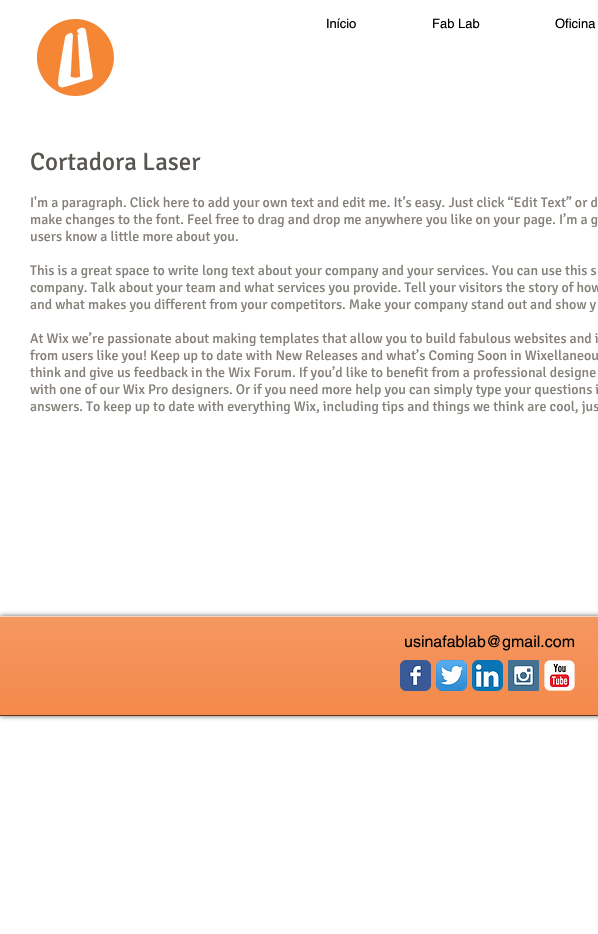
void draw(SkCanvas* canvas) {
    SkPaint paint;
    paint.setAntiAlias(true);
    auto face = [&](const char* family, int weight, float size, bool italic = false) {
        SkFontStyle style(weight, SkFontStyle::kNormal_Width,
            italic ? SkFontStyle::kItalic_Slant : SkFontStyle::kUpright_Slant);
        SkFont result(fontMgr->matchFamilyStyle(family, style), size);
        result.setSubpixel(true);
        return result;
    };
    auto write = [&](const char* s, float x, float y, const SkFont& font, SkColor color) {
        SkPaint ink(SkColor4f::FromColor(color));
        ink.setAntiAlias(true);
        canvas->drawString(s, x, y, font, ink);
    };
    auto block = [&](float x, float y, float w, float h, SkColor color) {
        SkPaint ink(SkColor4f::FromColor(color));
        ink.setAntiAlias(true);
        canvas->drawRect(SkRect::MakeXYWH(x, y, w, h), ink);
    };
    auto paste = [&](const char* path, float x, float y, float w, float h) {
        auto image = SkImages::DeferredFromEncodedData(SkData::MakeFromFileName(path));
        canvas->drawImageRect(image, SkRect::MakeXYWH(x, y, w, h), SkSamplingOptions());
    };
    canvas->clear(SK_ColorWHITE);
    paste("pic1.png", 37, 19, 77, 77);
    auto kFont1 = face("helvetica", 400, 13);
    write("Início", 326, 28, kFont1, SK_ColorBLACK);
    write("Fab Lab", 432, 28, kFont1, SK_ColorBLACK);
    write("Oficina", 555, 28, kFont1, SK_ColorBLACK);
    auto kFont2 = face("Signika", 400, 25);
    write("Cortadora Laser", 30, 170, kFont2, SkColorSetRGB(88, 85, 81));
    auto kFont3 = face("Signika", 400, 14);
    write("I'm a paragraph. Click here to add your own text and edit me. It’s easy. Just click “Edit Text” or d", 30, 207, kFont3, SkColorSetRGB(132, 128, 121));
    write("make changes to the font. Feel free to drag and drop me anywhere you like on your page. I’m a g", 30, 224, kFont3, SkColorSetRGB(132, 128, 121));
    write("users know a little more about you.", 30, 241, kFont3, SkColorSetRGB(132, 128, 121));
    write("This is a great space to write long text about your company and your services. You can use this s", 30, 275, kFont3, SkColorSetRGB(132, 128, 121));
    write("company. Talk about your team and what services you provide. Tell your visitors the story of how", 30, 292, kFont3, SkColorSetRGB(132, 128, 121));
    write("and what makes you different from your competitors. Make your company stand out and show y", 30, 309, kFont3, SkColorSetRGB(132, 128, 121));
    write("At Wix we’re passionate about making templates that allow you to build fabulous websites and i", 30, 343, kFont3, SkColorSetRGB(132, 128, 121));
    write("from users like you! Keep up to date with New Releases and what’s Coming Soon in Wixellaneou", 30, 360, kFont3, SkColorSetRGB(132, 128, 121));
    write("think and give us feedback in the Wix Forum. If you’d like to benefit from a professional designe", 30, 377, kFont3, SkColorSetRGB(132, 128, 121));
    write("with one of our Wix Pro designers. Or if you need more help you can simply type your questions i", 30, 394, kFont3, SkColorSetRGB(132, 128, 121));
    write("answers. To keep up to date with everything Wix, including tips and things we think are cool, jus", 30, 411, kFont3, SkColorSetRGB(132, 128, 121));
    paint.setColor(SkColorSetARGB(153, 0, 0, 0));
    paint.setMaskFilter(SkMaskFilter::MakeBlur(kNormal_SkBlurStyle, 2.5f));
    canvas->drawRect(SkRect::MakeXYWH(0, 616, 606, 100), paint);
    paint.setMaskFilter(nullptr);
    block(0, 617, 598, 98, SkColorSetRGB(242, 115, 41));
    paste("pic2.png", 0, 617, 598, 98);
    block(0, 715, 598, 1, SkColorSetRGB(98, 55, 30));
    block(0, 616, 598, 1, SkColorSetRGB(251, 213, 192));
    auto kFont4 = face("helvetica", 400, 16);
    write("usinafablab@gmail.com", 404, 647, kFont4, SK_ColorBLACK);
    paste("pic3.png", 400, 660, 31, 31);
    paste("pic4.png", 436, 660, 31, 31);
    paste("pic5.png", 472, 660, 31, 31);
    paste("pic6.png", 508, 660, 31, 31);
    paste("pic7.png", 544, 660, 31, 31);
}
